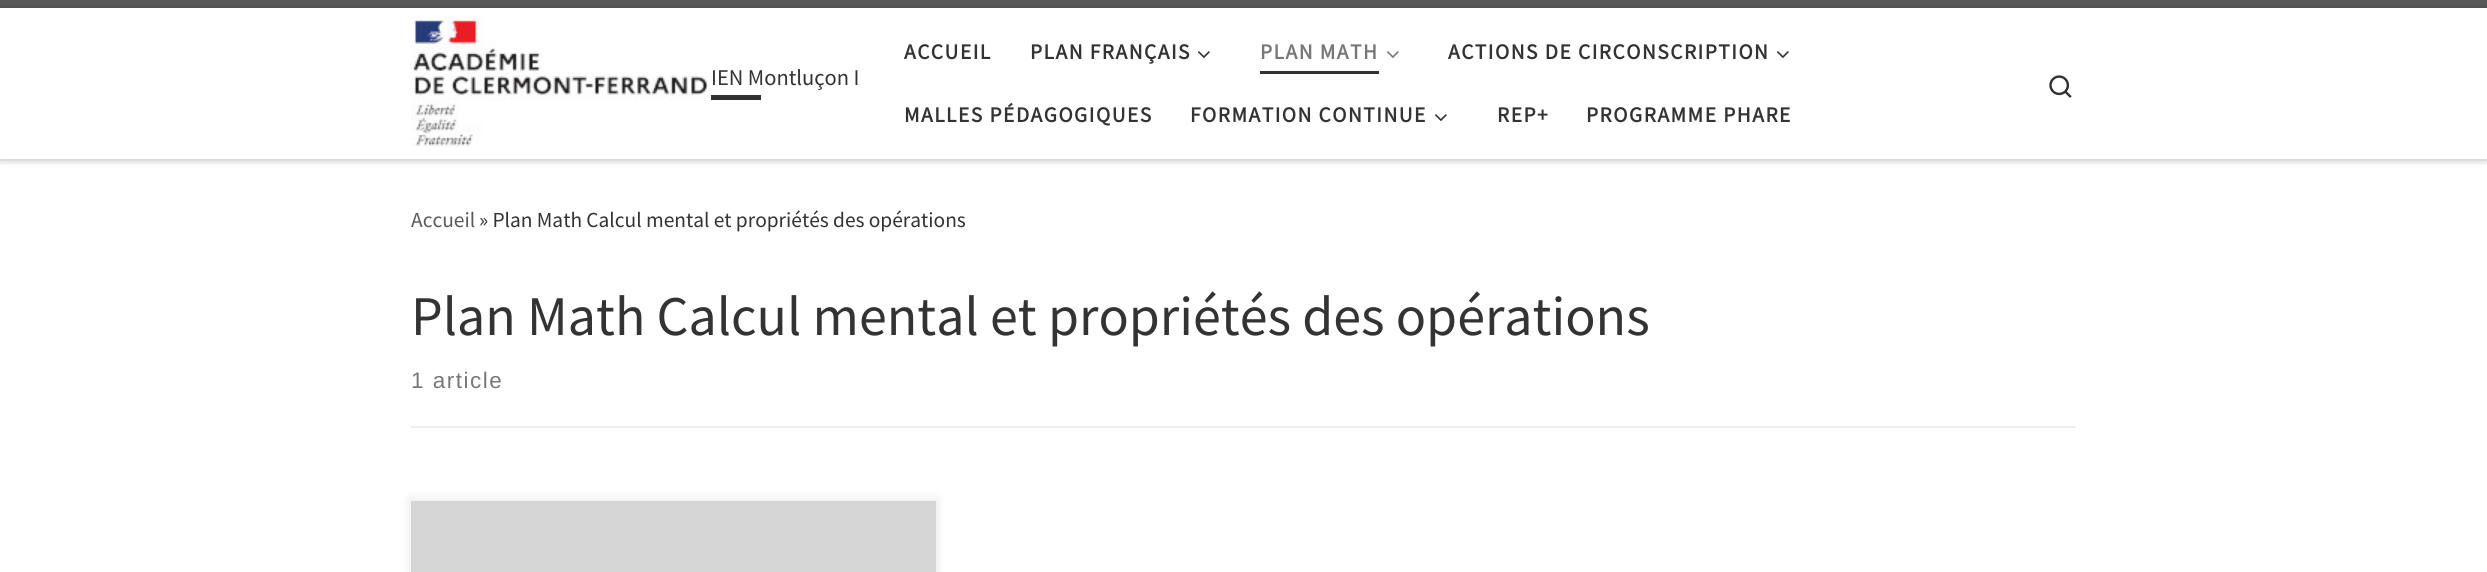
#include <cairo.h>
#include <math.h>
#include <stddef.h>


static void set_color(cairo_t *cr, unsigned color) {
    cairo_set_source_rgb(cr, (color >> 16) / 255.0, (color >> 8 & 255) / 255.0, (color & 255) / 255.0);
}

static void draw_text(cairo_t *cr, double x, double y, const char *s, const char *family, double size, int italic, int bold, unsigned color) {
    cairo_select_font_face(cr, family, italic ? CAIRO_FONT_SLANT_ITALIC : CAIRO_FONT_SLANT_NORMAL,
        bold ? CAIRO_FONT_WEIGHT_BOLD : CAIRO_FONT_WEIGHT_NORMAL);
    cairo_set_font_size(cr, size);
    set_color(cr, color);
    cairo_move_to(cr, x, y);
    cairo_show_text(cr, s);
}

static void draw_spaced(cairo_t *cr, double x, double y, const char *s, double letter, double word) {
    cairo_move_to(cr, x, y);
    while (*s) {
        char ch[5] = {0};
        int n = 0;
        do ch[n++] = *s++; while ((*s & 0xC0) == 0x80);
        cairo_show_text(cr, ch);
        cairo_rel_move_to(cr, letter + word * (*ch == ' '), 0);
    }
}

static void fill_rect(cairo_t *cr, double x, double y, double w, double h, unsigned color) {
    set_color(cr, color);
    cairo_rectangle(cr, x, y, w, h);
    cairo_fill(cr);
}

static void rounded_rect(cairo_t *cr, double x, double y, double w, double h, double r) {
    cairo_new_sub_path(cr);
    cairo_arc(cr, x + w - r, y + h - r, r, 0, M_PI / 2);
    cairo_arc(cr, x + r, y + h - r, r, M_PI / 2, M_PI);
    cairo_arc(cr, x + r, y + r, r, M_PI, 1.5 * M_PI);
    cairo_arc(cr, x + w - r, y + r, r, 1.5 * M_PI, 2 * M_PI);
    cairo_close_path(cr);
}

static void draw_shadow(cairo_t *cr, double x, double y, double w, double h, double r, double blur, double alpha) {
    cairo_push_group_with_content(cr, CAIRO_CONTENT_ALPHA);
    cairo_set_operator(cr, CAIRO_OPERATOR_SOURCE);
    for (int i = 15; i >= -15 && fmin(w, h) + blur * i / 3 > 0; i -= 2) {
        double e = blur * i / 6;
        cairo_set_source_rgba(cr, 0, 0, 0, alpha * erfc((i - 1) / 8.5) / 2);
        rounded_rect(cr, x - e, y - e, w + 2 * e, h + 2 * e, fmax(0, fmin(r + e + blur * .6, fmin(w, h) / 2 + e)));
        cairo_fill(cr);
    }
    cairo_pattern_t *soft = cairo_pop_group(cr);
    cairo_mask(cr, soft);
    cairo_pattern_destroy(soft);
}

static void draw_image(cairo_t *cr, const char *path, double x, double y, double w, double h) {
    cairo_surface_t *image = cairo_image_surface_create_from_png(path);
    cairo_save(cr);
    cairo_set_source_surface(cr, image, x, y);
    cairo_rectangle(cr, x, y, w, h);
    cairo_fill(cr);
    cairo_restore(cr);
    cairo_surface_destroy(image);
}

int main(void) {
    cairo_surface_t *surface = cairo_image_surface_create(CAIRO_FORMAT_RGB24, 2487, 572);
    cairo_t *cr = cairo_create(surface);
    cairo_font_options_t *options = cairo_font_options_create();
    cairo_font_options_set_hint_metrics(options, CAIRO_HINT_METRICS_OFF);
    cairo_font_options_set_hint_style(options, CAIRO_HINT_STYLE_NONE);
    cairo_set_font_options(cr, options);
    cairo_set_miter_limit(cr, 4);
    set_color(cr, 0xFFFFFF);
    cairo_paint(cr);
    set_color(cr, 0x666666);
    draw_shadow(cr, 0, 3, 2487, 161, 0, 1.5, 0.08);
    fill_rect(cr, 0, 8, 2487, 151, 0xFFFFFF);
    fill_rect(cr, 0, 0, 2487, 8, 0x5A5A5A);
    fill_rect(cr, 0, 159, 2487, 2, 0xEFEFEF);
    cairo_save(cr);
    cairo_set_fill_rule(cr, CAIRO_FILL_RULE_EVEN_ODD);
    cairo_new_path(cr);
    cairo_move_to(cr, 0, 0);
    cairo_line_to(cr, 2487, 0);
    cairo_line_to(cr, 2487, 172);
    cairo_line_to(cr, 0, 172);
    cairo_close_path(cr);
    cairo_move_to(cr, 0, 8);
    cairo_line_to(cr, 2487, 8);
    cairo_line_to(cr, 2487, 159);
    cairo_line_to(cr, 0, 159);
    cairo_close_path(cr);
    cairo_clip(cr);
    set_color(cr, 0x000000);
    draw_shadow(cr, 0, 8, 2487, 151, 0, 4, 0.2);
    cairo_restore(cr);
    draw_image(cr, "assets/img1.png", 411, 16, 300, 132);
    draw_text(cr, 711, 85, "IEN Montluçon I", "Source Sans Pro", 22.5, 0, 0, 0x333333);
    fill_rect(cr, 711, 95, 50, 5, 0x313131);
    cairo_select_font_face(cr, "Source Sans Pro", CAIRO_FONT_SLANT_NORMAL, CAIRO_FONT_WEIGHT_BOLD);
    cairo_set_font_size(cr, 21.4);
    set_color(cr, 0x333333);
    draw_spaced(cr, 904, 59, "ACCUEIL", 1.5, 0);
    draw_spaced(cr, 1030, 59, "PLAN FRANÇAIS", 1.5, 0);
    draw_image(cr, "assets/img2.png", 1198, 51, 12, 7);
    set_color(cr, 0x777777);
    draw_spaced(cr, 1260, 59, "PLAN MATH", 1.5, 0);
    fill_rect(cr, 1260, 71, 119, 3, 0x313131);
    draw_image(cr, "assets/img3.png", 1387, 51, 12, 7);
    set_color(cr, 0x333333);
    draw_spaced(cr, 1448, 59, "ACTIONS DE CIRCONSCRIPTION", 1.5, 0);
    draw_image(cr, "assets/img2.png", 1777, 51, 12, 7);
    draw_spaced(cr, 904, 122, "MALLES PÉDAGOGIQUES", 1.5, 0);
    draw_spaced(cr, 1190, 122, "FORMATION CONTINUE", 1.5, 0);
    draw_image(cr, "assets/img2.png", 1435, 114, 12, 7);
    draw_spaced(cr, 1497, 122, "REP+", 1.5, 0);
    draw_spaced(cr, 1586, 122, "PROGRAMME PHARE", 1.5, 0);
    draw_image(cr, "assets/img4.png", 2049, 75, 23, 23);
    draw_text(cr, 411, 227, "Accueil", "Source Sans Pro", 21.4, 0, 0, 0x5A5A5A);
    draw_text(cr, 479, 227, "» Plan Math Calcul mental et propriétés des opérations", "Source Sans Pro", 21.4, 0, 0, 0x333333);
    draw_text(cr, 411, 335, "Plan Math Calcul mental et propriétés des opérations", "Source Sans Pro", 56, 0, 0, 0x333333);
    cairo_select_font_face(cr, "Liberation Sans", CAIRO_FONT_SLANT_NORMAL, CAIRO_FONT_WEIGHT_NORMAL);
    cairo_set_font_size(cr, 22.5);
    set_color(cr, 0x777777);
    draw_spaced(cr, 411, 388, "1 article", 1.5, 0);
    fill_rect(cr, 411, 426, 1665, 2, 0xECEEEF);
    set_color(cr, 0x000000);
    draw_shadow(cr, 408, 498, 531, 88, 0, 4.5, 0.07);
    fill_rect(cr, 411, 501, 525, 71, 0xD5D5D5);
    cairo_surface_write_to_png(surface, "output.png");
    cairo_font_options_destroy(options);
    cairo_destroy(cr);
    cairo_surface_destroy(surface);
    return 0;
}
